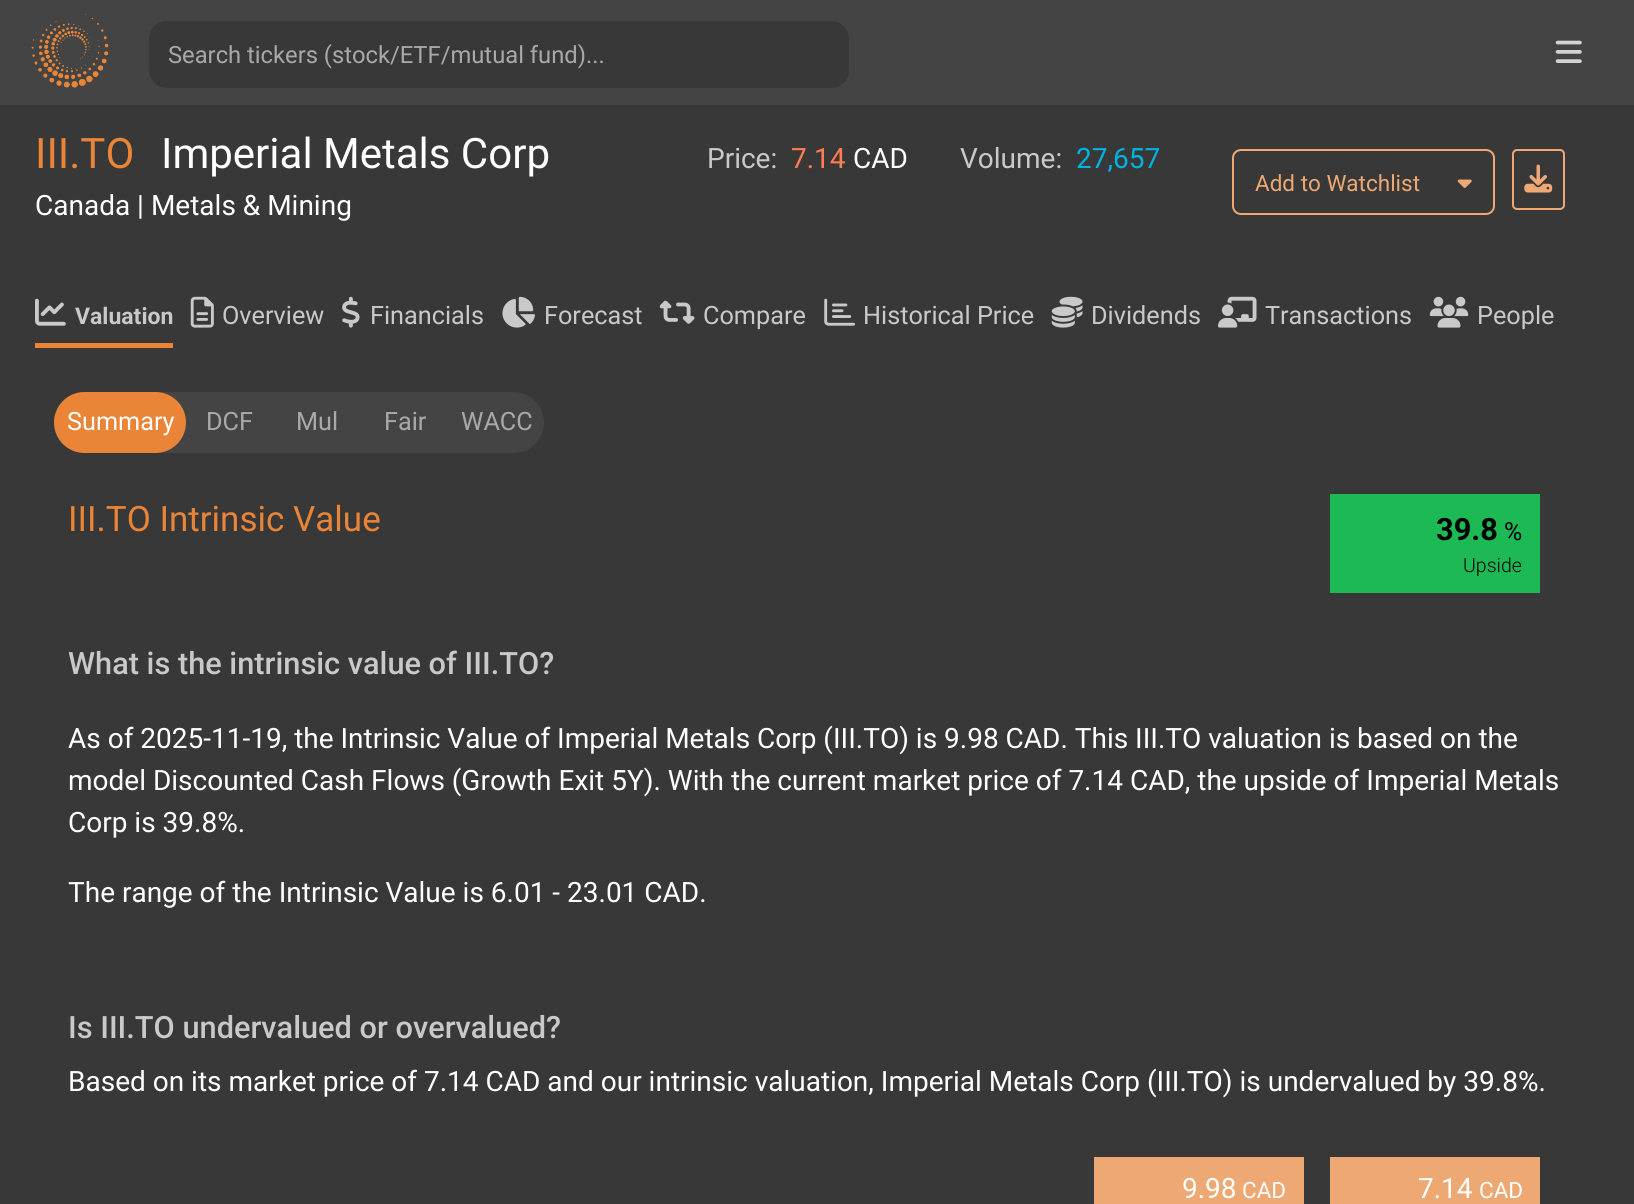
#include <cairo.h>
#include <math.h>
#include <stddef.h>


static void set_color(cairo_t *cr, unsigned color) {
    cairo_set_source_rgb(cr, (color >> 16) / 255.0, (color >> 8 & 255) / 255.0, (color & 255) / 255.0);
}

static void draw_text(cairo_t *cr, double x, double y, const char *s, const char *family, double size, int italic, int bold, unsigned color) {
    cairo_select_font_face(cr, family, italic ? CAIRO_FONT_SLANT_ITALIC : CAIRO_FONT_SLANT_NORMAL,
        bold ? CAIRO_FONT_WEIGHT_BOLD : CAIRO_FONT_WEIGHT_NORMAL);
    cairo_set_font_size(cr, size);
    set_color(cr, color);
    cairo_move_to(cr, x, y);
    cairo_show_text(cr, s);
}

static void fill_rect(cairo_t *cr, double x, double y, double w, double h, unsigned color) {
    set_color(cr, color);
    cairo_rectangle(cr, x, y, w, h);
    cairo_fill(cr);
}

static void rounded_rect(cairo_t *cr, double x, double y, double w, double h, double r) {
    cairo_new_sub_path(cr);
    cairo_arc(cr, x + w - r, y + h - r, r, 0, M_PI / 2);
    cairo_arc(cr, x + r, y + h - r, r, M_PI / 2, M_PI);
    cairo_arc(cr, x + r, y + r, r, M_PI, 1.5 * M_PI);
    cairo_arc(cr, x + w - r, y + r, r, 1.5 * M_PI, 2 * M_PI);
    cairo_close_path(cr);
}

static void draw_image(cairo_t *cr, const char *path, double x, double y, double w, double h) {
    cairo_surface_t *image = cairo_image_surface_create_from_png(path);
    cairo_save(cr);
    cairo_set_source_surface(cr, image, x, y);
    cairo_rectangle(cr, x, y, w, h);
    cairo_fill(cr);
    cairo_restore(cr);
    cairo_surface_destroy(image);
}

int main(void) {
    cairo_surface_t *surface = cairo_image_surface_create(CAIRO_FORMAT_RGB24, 1634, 1204);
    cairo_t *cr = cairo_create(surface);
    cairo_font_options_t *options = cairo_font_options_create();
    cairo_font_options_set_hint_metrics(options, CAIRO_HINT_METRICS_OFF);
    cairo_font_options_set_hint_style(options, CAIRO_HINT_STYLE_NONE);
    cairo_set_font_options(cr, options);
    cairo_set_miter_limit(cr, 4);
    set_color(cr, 0x383838);
    cairo_paint(cr);
    fill_rect(cr, 0, 0, 1634, 105, 0x444444);
    draw_image(cr, "assets/img1.png", 31, 14, 78, 74);
    set_color(cr, 0x383838);
    rounded_rect(cr, 149, 21, 700, 67, 18);
    cairo_fill(cr);
    draw_text(cr, 168, 63, "Search tickers (stock/ETF/mutual fund)...", "Roboto", 23.75, 0, 0, 0xA9A9A9);
    draw_image(cr, "assets/img2.png", 1555, 40, 27, 23);
    draw_text(cr, 35, 168, "III.TO", "Roboto", 42, 0, 0, 0xEA8436);
    draw_text(cr, 161, 168, "Imperial Metals Corp", "Roboto", 42, 0, 0, 0xFFFFFF);
    draw_text(cr, 707, 168, "Price:", "Roboto", 28, 0, 0, 0xC9C9C9);
    draw_text(cr, 791, 168, "7.14", "Roboto", 28, 0, 0, 0xFF7F50);
    draw_text(cr, 853, 168, "CAD", "Roboto", 28, 0, 0, 0xFFFFFF);
    draw_text(cr, 960, 168, "Volume:", "Roboto", 28, 0, 0, 0xC9C9C9);
    draw_text(cr, 1076, 168, "27,657", "Roboto", 28, 0, 0, 0x00B3E3);
    rounded_rect(cr, 1233, 150, 261, 64, 8);
    set_color(cr, 0xEEA874);
    cairo_stroke(cr);
    draw_text(cr, 1255, 191, "Add to Watchlist", "Roboto", 22.5, 0, 0, 0xEEA874);
    draw_image(cr, "assets/img3.png", 1457, 179, 15, 9);
    rounded_rect(cr, 1513, 150, 51, 59, 4);
    cairo_stroke(cr);
    draw_image(cr, "assets/img4.png", 1524, 164, 29, 29);
    draw_text(cr, 35, 215, "Canada | Metals & Mining", "Roboto", 28, 0, 0, 0xFFFFFF);
    fill_rect(cr, 35, 343, 138, 5, 0xEA8436);
    draw_image(cr, "assets/img5.png", 35, 298, 31, 28);
    draw_text(cr, 75, 324, "Valuation", "Roboto", 23, 0, 1, 0xC9C9C9);
    draw_image(cr, "assets/img6.png", 190, 296, 24, 32);
    draw_text(cr, 222, 324, "Overview", "Roboto", 25.25, 0, 0, 0xC9C9C9);
    draw_image(cr, "assets/img7.png", 342, 296, 18, 32);
    draw_text(cr, 370, 324, "Financials", "Roboto", 25.25, 0, 0, 0xC9C9C9);
    draw_image(cr, "assets/img8.png", 502, 296, 33, 32);
    draw_text(cr, 544, 324, "Forecast", "Roboto", 25.25, 0, 0, 0xC9C9C9);
    draw_image(cr, "assets/img9.png", 659, 300, 36, 24);
    draw_text(cr, 703, 324, "Compare", "Roboto", 25.25, 0, 0, 0xC9C9C9);
    draw_image(cr, "assets/img10.png", 824, 298, 31, 28);
    draw_text(cr, 863, 324, "Historical Price", "Roboto", 25.25, 0, 0, 0xC9C9C9);
    draw_image(cr, "assets/img11.png", 1051, 296, 32, 32);
    draw_text(cr, 1091, 324, "Dividends", "Roboto", 25.25, 0, 0, 0xC9C9C9);
    draw_image(cr, "assets/img12.png", 1218, 296, 39, 32);
    draw_text(cr, 1265, 324, "Transactions", "Roboto", 25.25, 0, 0, 0xC9C9C9);
    draw_image(cr, "assets/img13.png", 1429, 296, 40, 32);
    draw_text(cr, 1477, 324, "People", "Roboto", 25.25, 0, 0, 0xC9C9C9);
    set_color(cr, 0x444444);
    rounded_rect(cr, 54, 392, 490, 61, 30.5);
    cairo_fill(cr);
    set_color(cr, 0xEA8436);
    rounded_rect(cr, 54, 392, 132, 61, 30.5);
    cairo_fill(cr);
    draw_text(cr, 67, 430, "Summary", "Roboto", 25.25, 0, 0, 0xFFFFFF);
    draw_text(cr, 206, 430, "DCF", "Roboto", 25.25, 0, 0, 0xA9A9A9);
    draw_text(cr, 296, 430, "Mul", "Roboto", 25.25, 0, 0, 0xA9A9A9);
    draw_text(cr, 384, 430, "Fair", "Roboto", 25.25, 0, 0, 0xA9A9A9);
    draw_text(cr, 461, 430, "WACC", "Roboto", 25.25, 0, 0, 0xA9A9A9);
    draw_text(cr, 68, 531, "III.TO Intrinsic Value", "Roboto", 35, 0, 0, 0xEA8436);
    fill_rect(cr, 1330, 494, 210, 99, 0x1DB954);
    draw_text(cr, 1436, 540, "39.8", "Roboto", 30.75, 0, 1, 0x000000);
    draw_text(cr, 1504, 540, "%", "Roboto", 25, 0, 0, 0x000000);
    draw_text(cr, 1463, 572, "Upside", "Roboto Light", 19.5, 0, 0, 0x000000);
    draw_text(cr, 68, 674, "What is the intrinsic value of III.TO?", "Roboto Medium", 30.75, 0, 0, 0xC9C9C9);
    draw_text(cr, 68, 748, "As of 2025-11-19, the Intrinsic Value of Imperial Metals Corp (III.TO) is 9.98 CAD. This III.TO valuation is based on the", "Roboto", 28, 0, 0, 0xFFFFFF);
    draw_text(cr, 68, 790, "model Discounted Cash Flows (Growth Exit 5Y). With the current market price of 7.14 CAD, the upside of Imperial Metals", "Roboto", 28, 0, 0, 0xFFFFFF);
    draw_text(cr, 68, 832, "Corp is 39.8%.", "Roboto", 28, 0, 0, 0xFFFFFF);
    draw_text(cr, 68, 902, "The range of the Intrinsic Value is 6.01 - 23.01 CAD.", "Roboto", 28, 0, 0, 0xFFFFFF);
    draw_text(cr, 68, 1038, "Is III.TO undervalued or overvalued?", "Roboto Medium", 30.75, 0, 0, 0xC9C9C9);
    draw_text(cr, 68, 1091, "Based on its market price of 7.14 CAD and our intrinsic valuation, Imperial Metals Corp (III.TO) is undervalued by 39.8%.", "Roboto", 28, 0, 0, 0xFFFFFF);
    fill_rect(cr, 1094, 1157, 210, 47, 0xEEA874);
    draw_text(cr, 1182, 1198, "9.98", "Roboto", 28, 0, 0, 0xFFFFFF);
    draw_text(cr, 1242, 1198, "CAD", "Roboto", 22.5, 0, 0, 0xFFFFFF);
    fill_rect(cr, 1330, 1157, 210, 47, 0xEEA874);
    draw_text(cr, 1418, 1198, "7.14", "Roboto", 28, 0, 0, 0xFFFFFF);
    draw_text(cr, 1479, 1198, "CAD", "Roboto", 22.5, 0, 0, 0xFFFFFF);
    cairo_surface_write_to_png(surface, "output.png");
    cairo_font_options_destroy(options);
    cairo_destroy(cr);
    cairo_surface_destroy(surface);
    return 0;
}
